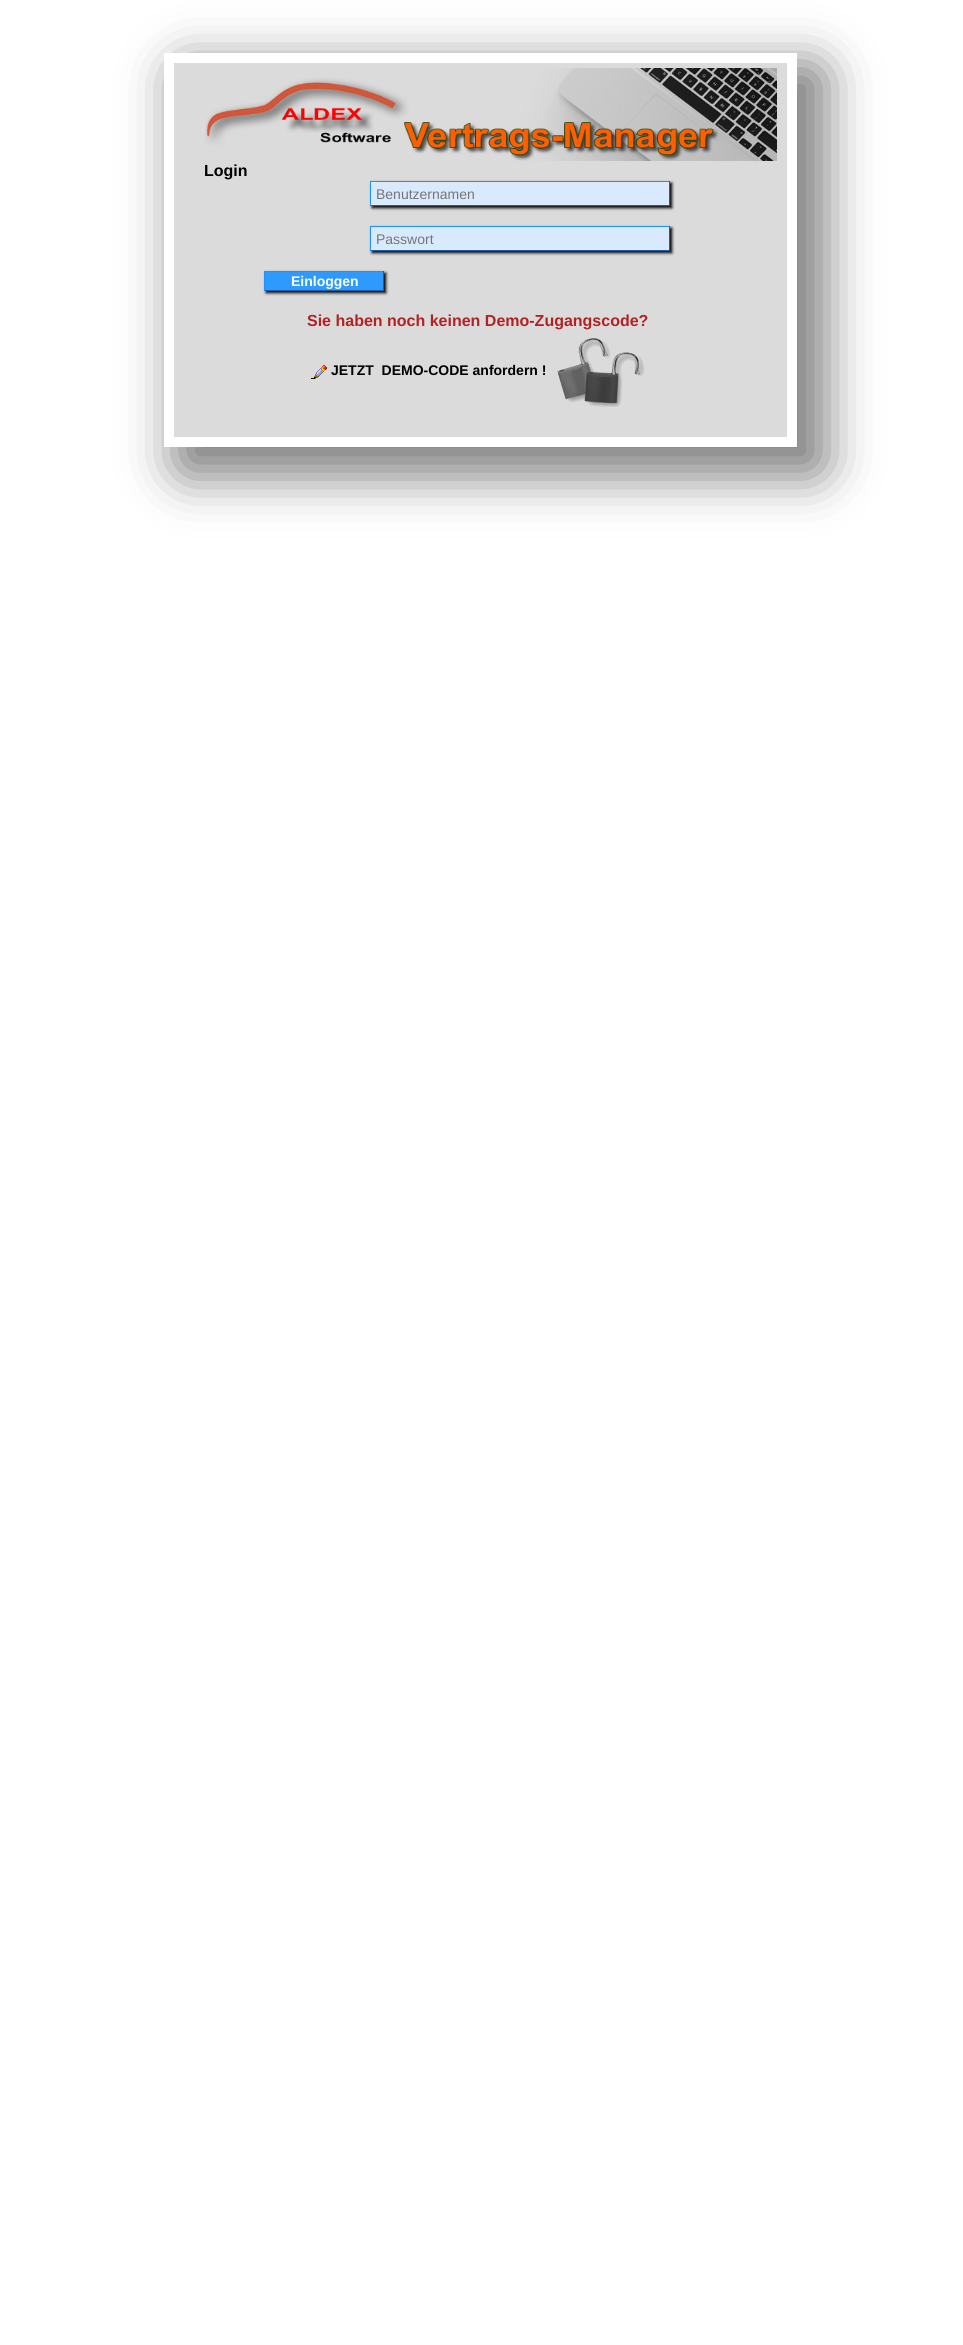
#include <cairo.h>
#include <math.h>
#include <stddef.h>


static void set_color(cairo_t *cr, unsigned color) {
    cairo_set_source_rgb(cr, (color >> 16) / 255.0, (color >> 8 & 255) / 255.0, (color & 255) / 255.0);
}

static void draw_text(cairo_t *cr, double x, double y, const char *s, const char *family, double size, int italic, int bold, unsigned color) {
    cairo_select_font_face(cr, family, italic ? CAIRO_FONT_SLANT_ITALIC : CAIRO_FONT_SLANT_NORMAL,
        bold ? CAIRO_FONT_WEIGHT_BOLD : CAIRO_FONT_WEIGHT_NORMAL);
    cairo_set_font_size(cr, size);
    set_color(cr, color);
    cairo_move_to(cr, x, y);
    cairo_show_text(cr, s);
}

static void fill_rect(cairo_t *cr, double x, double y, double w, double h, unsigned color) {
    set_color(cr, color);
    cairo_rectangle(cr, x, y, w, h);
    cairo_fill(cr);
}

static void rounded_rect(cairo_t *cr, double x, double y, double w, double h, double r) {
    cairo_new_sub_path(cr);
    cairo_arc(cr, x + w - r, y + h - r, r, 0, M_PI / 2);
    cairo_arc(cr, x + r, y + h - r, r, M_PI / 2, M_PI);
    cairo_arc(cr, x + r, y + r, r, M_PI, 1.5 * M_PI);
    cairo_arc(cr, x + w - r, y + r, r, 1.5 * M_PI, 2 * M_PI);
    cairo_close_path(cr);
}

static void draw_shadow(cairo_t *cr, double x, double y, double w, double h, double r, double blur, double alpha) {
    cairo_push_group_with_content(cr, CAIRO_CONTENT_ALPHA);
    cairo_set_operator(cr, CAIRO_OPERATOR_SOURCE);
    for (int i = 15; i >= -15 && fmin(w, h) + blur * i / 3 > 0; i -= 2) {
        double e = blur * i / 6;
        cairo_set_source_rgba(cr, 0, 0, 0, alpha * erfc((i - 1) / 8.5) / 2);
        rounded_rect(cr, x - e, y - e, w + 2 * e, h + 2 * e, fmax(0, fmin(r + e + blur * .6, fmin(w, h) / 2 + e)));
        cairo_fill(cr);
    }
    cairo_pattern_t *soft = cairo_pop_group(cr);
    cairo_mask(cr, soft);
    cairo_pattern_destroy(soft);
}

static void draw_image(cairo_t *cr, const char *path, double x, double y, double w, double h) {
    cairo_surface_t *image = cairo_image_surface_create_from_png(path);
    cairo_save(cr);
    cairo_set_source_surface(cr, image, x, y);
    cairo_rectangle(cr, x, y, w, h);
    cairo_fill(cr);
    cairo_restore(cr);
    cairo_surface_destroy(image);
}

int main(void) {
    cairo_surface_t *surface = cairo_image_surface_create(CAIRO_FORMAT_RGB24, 963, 2345);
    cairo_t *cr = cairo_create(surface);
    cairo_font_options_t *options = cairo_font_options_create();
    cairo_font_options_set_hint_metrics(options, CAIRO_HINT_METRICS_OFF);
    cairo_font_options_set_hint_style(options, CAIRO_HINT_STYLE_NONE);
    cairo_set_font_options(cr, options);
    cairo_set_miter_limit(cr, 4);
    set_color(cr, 0xFFFFFF);
    cairo_paint(cr);
    set_color(cr, 0x808080);
    draw_shadow(cr, 174, 63, 653, 414, 12, 25, 1);
    fill_rect(cr, 174, 63, 613, 374, 0xDBDBDB);
    cairo_new_path(cr);
    cairo_move_to(cr, 169, 58);
    cairo_line_to(cr, 792, 58);
    cairo_line_to(cr, 792, 442);
    cairo_line_to(cr, 169, 442);
    cairo_close_path(cr);
    set_color(cr, 0xFFFFFF);
    cairo_set_line_width(cr, 10);
    cairo_stroke(cr);
    draw_image(cr, "assets/img1.png", 205, 68, 572, 93);
    draw_text(cr, 204, 176, "Login", "Liberation Sans", 16, 0, 1, 0x000000);
    set_color(cr, 0x000000);
    draw_shadow(cr, 372, 183, 300, 25, 0, 1.5, 1);
    fill_rect(cr, 371, 182, 298, 23, 0xDAEAFE);
    fill_rect(cr, 370, 181, 300, 1, 0x1E90FF);
    fill_rect(cr, 669, 181, 1, 25, 0x1460AA);
    fill_rect(cr, 370, 205, 300, 1, 0x1460AA);
    fill_rect(cr, 370, 181, 1, 25, 0x1E90FF);
    draw_text(cr, 376, 199, "Benutzernamen", "Liberation Sans", 14, 0, 0, 0x757575);
    set_color(cr, 0x000000);
    draw_shadow(cr, 372, 228, 300, 25, 0, 1.5, 1);
    fill_rect(cr, 371, 227, 298, 23, 0xDAEAFE);
    fill_rect(cr, 370, 226, 300, 1, 0x1E90FF);
    fill_rect(cr, 669, 226, 1, 25, 0x1460AA);
    fill_rect(cr, 370, 250, 300, 1, 0x1460AA);
    fill_rect(cr, 370, 226, 1, 25, 0x1E90FF);
    draw_text(cr, 376, 244, "Passwort", "Liberation Sans", 14, 0, 0, 0x757575);
    set_color(cr, 0x000000);
    draw_shadow(cr, 266, 273, 120, 20, 0, 1.5, 1);
    fill_rect(cr, 265, 272, 118, 18, 0x2E9AFE);
    fill_rect(cr, 264, 271, 120, 1, 0x1E90FF);
    fill_rect(cr, 383, 271, 1, 20, 0x1460AA);
    fill_rect(cr, 264, 290, 120, 1, 0x1460AA);
    fill_rect(cr, 264, 271, 1, 20, 0x1E90FF);
    draw_text(cr, 291, 286, "Einloggen", "Liberation Sans", 14, 0, 1, 0xFFFFFF);
    draw_text(cr, 307, 326, "Sie haben noch keinen Demo-Zugangscode?", "Liberation Sans", 16, 0, 1, 0xB22222);
    draw_image(cr, "assets/img2.png", 311, 365, 16, 14);
    draw_text(cr, 331, 375, "JETZT  DEMO-CODE anfordern !", "Liberation Sans", 14, 0, 1, 0x000000);
    draw_image(cr, "assets/img3.png", 557, 338, 88, 69);
    cairo_surface_write_to_png(surface, "output.png");
    cairo_font_options_destroy(options);
    cairo_destroy(cr);
    cairo_surface_destroy(surface);
    return 0;
}
